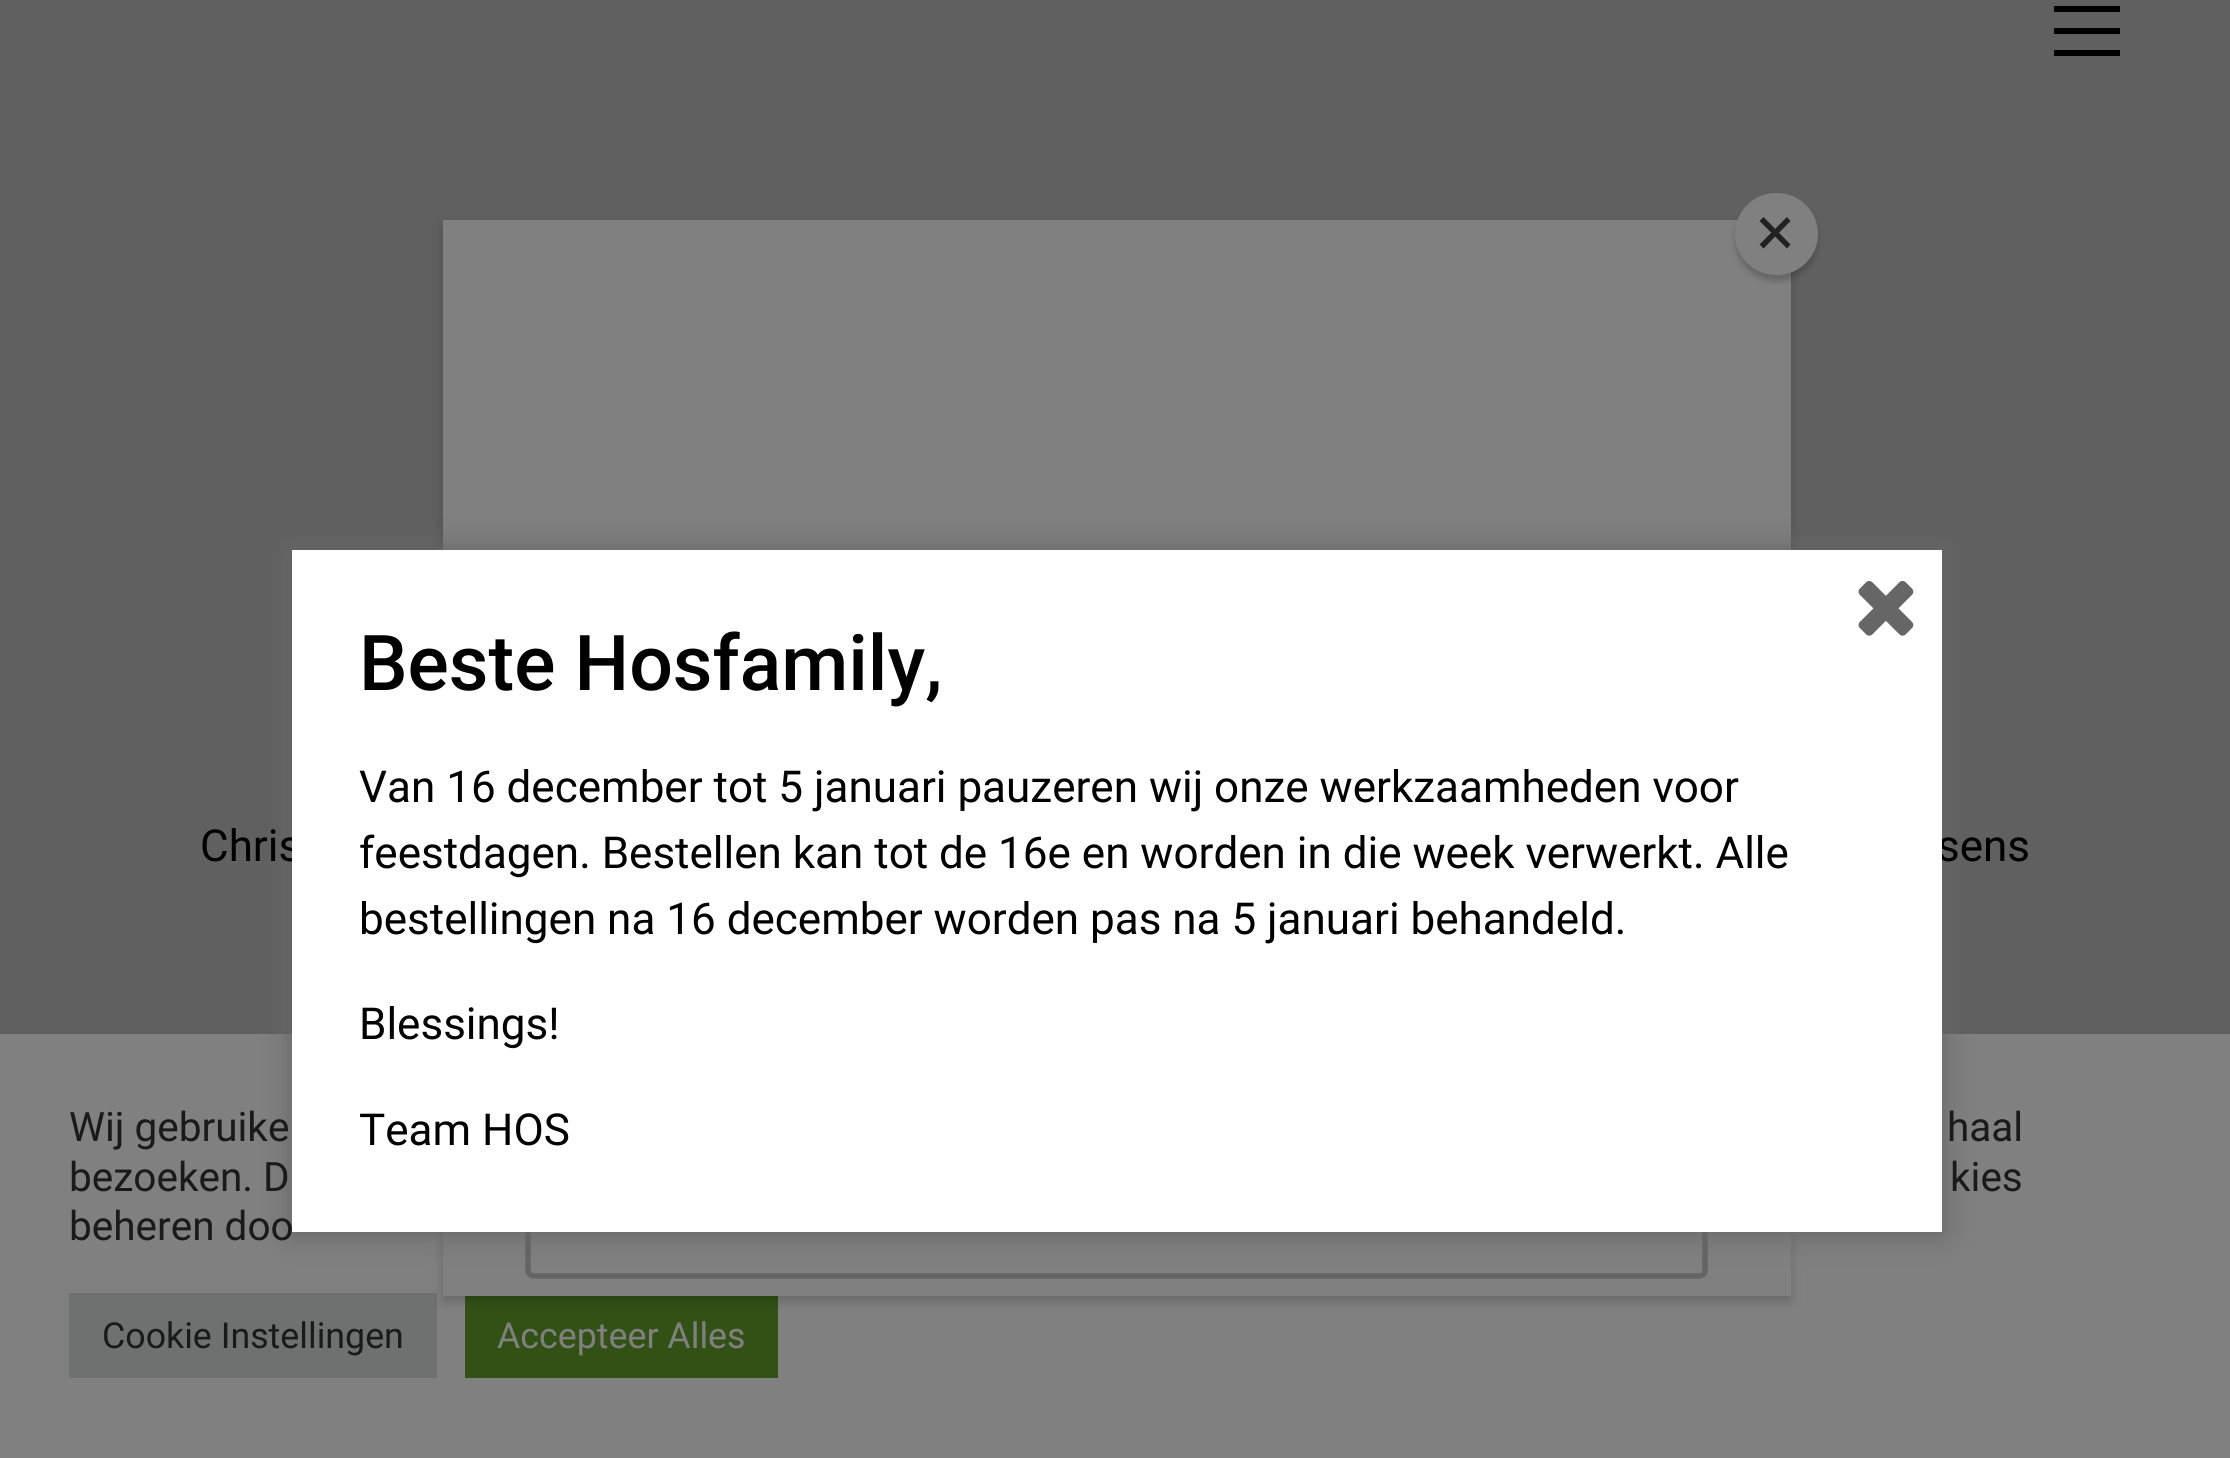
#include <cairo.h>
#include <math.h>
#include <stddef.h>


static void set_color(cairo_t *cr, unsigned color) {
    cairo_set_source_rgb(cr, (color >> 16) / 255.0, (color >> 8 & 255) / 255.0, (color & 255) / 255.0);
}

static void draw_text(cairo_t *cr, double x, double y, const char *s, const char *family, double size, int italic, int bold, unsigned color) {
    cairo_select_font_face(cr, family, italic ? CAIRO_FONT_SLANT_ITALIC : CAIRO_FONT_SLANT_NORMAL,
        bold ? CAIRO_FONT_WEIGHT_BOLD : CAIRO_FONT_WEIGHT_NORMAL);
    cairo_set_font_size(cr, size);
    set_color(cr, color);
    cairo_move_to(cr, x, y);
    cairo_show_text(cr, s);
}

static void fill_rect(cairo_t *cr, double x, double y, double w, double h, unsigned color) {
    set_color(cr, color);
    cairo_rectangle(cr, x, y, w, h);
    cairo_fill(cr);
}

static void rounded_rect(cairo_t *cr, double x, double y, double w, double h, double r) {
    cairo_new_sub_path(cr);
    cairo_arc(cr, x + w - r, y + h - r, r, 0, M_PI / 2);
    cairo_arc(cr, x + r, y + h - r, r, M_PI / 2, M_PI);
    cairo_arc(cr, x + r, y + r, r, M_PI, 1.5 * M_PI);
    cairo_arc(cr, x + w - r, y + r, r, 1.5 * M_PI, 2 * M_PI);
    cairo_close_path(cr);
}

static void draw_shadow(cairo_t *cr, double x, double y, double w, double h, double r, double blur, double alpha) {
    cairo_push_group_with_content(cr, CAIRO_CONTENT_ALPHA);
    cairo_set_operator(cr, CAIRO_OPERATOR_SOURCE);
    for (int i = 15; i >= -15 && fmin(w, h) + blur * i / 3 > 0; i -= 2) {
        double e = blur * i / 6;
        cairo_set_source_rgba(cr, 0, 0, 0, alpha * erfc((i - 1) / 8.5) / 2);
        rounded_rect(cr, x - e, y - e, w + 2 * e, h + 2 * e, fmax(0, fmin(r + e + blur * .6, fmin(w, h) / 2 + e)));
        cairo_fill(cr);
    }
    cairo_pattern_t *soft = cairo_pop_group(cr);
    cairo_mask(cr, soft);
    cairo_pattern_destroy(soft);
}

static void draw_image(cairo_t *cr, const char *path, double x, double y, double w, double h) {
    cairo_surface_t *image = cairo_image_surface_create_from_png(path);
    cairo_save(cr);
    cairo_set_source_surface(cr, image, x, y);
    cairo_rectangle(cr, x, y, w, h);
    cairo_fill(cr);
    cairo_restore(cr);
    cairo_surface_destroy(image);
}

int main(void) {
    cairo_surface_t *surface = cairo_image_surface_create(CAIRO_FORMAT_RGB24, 2230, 1458);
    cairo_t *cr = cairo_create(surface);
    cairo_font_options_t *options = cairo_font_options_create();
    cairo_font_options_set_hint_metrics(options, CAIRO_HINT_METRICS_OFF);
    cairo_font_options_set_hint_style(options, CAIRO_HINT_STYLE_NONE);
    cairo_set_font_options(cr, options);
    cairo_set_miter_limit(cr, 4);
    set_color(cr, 0x606060);
    cairo_paint(cr);
    fill_rect(cr, 2054, 6, 66, 6, 0x000000);
    fill_rect(cr, 2054, 28, 66, 6, 0x000000);
    fill_rect(cr, 2054, 50, 66, 6, 0x000000);
    fill_rect(cr, 0, 1034, 2230, 424, 0x808080);
    fill_rect(cr, 69, 1293, 368, 85, 0x6F7070);
    fill_rect(cr, 465, 1296, 313, 82, 0x315115);
    set_color(cr, 0x000000);
    draw_shadow(cr, 443, 226, 1347, 1075, 0, 5.5, 0.2);
    draw_image(cr, "assets/img1.png", 443, 220, 1348, 1076);
    draw_shadow(cr, 1735, 198, 83, 83, 41.5, 3, 0.2);
    set_color(cr, 0x808080);
    rounded_rect(cr, 1735, 193, 83, 82, 41);
    cairo_fill(cr);
    set_color(cr, 0x212121);
    cairo_new_path(cr);
    cairo_move_to(cr, 1787, 217);
    cairo_line_to(cr, 1790.5, 221);
    cairo_line_to(cr, 1763.5, 248.5);
    cairo_line_to(cr, 1759.5, 244.5);
    cairo_close_path(cr);
    cairo_fill(cr);
    cairo_new_path(cr);
    cairo_move_to(cr, 1759.5, 221);
    cairo_line_to(cr, 1763.5, 217);
    cairo_line_to(cr, 1790.5, 244.5);
    cairo_line_to(cr, 1787, 248.5);
    cairo_close_path(cr);
    cairo_fill(cr);
    set_color(cr, 0x666666);
    draw_shadow(cr, 289, 547, 1655, 688, 0, 14, 1);
    draw_text(cr, 200, 861, "Chris", "Roboto", 44, 0, 0, 0x000000);
    draw_text(cr, 1937, 861, "sens", "Roboto", 44, 0, 0, 0x000000);
    fill_rect(cr, 292, 550, 1650, 682, 0xFFFFFF);
    draw_image(cr, "assets/img2.png", 1858, 581, 56, 55);
    draw_text(cr, 359, 690, "Beste Hosfamily,", "Roboto Medium", 77, 0, 0, 0x000000);
    draw_text(cr, 359, 802, "Van 16 december tot 5 januari pauzeren wij onze werkzaamheden voor", "Roboto", 44, 0, 0, 0x000000);
    draw_text(cr, 359, 868, "feestdagen. Bestellen kan tot de 16e en worden in die week verwerkt. Alle", "Roboto", 44, 0, 0, 0x000000);
    draw_text(cr, 359, 934, "bestellingen na 16 december worden pas na 5 januari behandeld.", "Roboto", 44, 0, 0, 0x000000);
    draw_text(cr, 359, 1039, "Blessings!", "Roboto", 44, 0, 0, 0x000000);
    draw_text(cr, 359, 1145, "Team HOS", "Roboto", 44, 0, 0, 0x000000);
    draw_text(cr, 69, 1141, "Wij gebruike", "Roboto", 40.5, 0, 0, 0x1A1A1A);
    draw_text(cr, 1947, 1141, "haal", "Roboto", 40.5, 0, 0, 0x1A1A1A);
    draw_text(cr, 69, 1191, "bezoeken. D", "Roboto", 40.5, 0, 0, 0x1A1A1A);
    draw_text(cr, 1950, 1191, "kies", "Roboto", 40.5, 0, 0, 0x1A1A1A);
    draw_text(cr, 69, 1240, "beheren doo", "Roboto", 40.5, 0, 0, 0x1A1A1A);
    draw_text(cr, 102, 1348, "Cookie Instellingen", "Roboto", 35.75, 0, 0, 0x1A1A1A);
    draw_text(cr, 497, 1348, "Accepteer Alles", "Roboto", 35.75, 0, 0, 0x808080);
    cairo_surface_write_to_png(surface, "output.png");
    cairo_font_options_destroy(options);
    cairo_destroy(cr);
    cairo_surface_destroy(surface);
    return 0;
}
